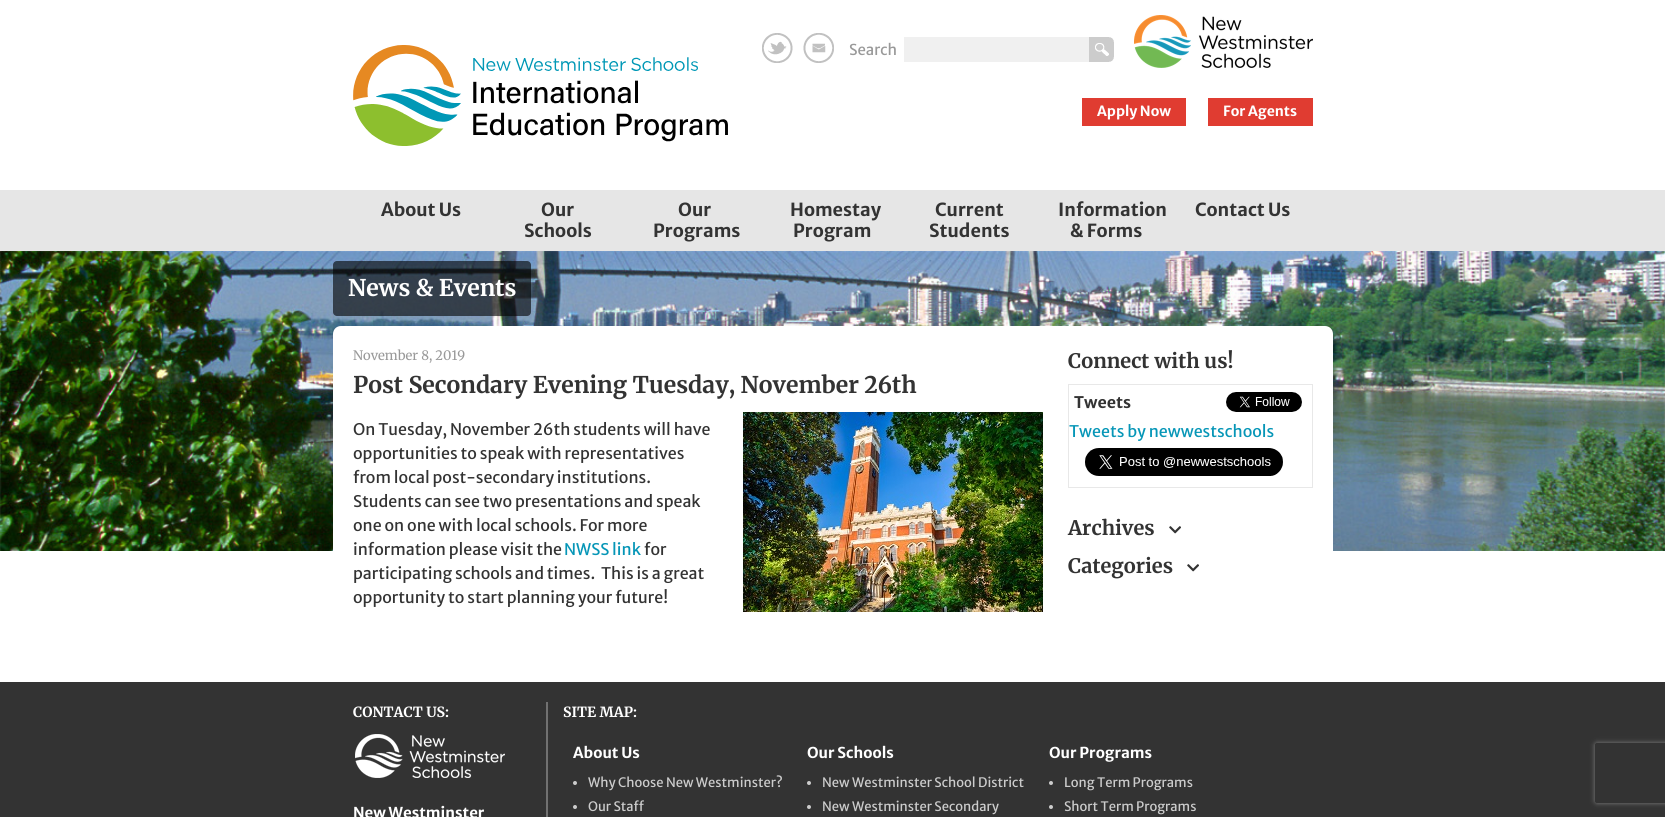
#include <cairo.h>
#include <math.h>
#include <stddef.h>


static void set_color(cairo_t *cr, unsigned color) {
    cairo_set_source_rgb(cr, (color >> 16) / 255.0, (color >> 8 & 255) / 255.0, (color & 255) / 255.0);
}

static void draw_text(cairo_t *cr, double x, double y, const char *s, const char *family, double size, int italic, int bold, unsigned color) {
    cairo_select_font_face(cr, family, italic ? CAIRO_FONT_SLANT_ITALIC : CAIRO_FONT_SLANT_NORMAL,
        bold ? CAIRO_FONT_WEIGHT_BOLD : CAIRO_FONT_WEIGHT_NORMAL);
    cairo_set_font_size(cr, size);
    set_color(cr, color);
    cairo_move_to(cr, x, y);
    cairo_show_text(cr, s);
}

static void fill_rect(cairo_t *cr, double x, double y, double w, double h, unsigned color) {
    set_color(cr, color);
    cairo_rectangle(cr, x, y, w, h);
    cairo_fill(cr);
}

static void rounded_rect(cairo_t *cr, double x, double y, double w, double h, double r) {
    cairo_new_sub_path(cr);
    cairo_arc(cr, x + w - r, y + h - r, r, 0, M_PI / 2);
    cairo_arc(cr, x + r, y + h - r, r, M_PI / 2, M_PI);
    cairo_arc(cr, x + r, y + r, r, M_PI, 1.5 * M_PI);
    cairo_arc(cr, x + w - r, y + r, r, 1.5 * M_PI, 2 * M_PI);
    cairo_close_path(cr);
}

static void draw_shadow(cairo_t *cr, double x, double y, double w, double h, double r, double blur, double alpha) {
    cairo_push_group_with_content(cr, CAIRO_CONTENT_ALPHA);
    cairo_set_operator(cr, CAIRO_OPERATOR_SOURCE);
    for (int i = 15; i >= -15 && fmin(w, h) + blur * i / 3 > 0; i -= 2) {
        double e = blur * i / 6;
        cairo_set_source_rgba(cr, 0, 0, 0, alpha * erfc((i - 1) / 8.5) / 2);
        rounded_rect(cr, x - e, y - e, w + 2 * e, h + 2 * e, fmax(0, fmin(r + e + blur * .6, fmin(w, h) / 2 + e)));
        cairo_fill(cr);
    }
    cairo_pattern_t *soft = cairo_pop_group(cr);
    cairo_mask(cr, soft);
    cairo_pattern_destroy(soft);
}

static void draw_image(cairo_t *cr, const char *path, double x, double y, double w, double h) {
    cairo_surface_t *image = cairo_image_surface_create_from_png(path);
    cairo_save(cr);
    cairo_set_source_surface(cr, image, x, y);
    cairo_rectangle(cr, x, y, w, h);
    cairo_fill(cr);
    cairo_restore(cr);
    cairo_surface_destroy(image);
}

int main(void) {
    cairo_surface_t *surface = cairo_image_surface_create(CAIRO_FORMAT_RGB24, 1665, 817);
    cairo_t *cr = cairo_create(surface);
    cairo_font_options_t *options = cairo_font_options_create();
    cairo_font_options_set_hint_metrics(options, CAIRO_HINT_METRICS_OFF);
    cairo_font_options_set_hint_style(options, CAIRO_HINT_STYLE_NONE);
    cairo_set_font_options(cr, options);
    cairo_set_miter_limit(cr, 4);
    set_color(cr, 0x333333);
    cairo_paint(cr);
    fill_rect(cr, 0, 0, 1665, 190, 0xFFFFFF);
    draw_image(cr, "assets/img1.png", 353, 45, 375, 101);
    draw_image(cr, "assets/img2.png", 762, 33, 31, 30);
    draw_image(cr, "assets/img3.png", 803, 33, 31, 30);
    draw_text(cr, 849, 55, "Search", "Merriweather Sans", 15, 0, 0, 0x999999);
    fill_rect(cr, 904, 37, 185, 25, 0xF0F0F0);
    draw_image(cr, "assets/img4.png", 1089, 37, 25, 25);
    draw_image(cr, "assets/img5.png", 1134, 15, 179, 53);
    fill_rect(cr, 1082, 98, 104, 28, 0xE03C31);
    draw_text(cr, 1097, 116, "Apply Now", "Merriweather Sans", 14, 0, 1, 0xFFFFFF);
    fill_rect(cr, 1208, 98, 105, 28, 0xE03C31);
    draw_text(cr, 1223, 116, "For Agents", "Merriweather Sans", 14, 0, 1, 0xFFFFFF);
    fill_rect(cr, 0, 190, 1665, 61, 0xE6E6E6);
    draw_text(cr, 381, 216, "About Us", "Merriweather Sans", 18, 0, 1, 0x333333);
    draw_text(cr, 541, 216, "Our", "Merriweather Sans", 18, 0, 1, 0x333333);
    draw_text(cr, 524, 237, "Schools", "Merriweather Sans", 18, 0, 1, 0x333333);
    draw_text(cr, 678, 216, "Our", "Merriweather Sans", 18, 0, 1, 0x333333);
    draw_text(cr, 653, 237, "Programs", "Merriweather Sans", 18, 0, 1, 0x333333);
    draw_text(cr, 790, 216, "Homestay", "Merriweather Sans", 18, 0, 1, 0x333333);
    draw_text(cr, 793, 237, "Program", "Merriweather Sans", 18, 0, 1, 0x333333);
    draw_text(cr, 935, 216, "Current", "Merriweather Sans", 18, 0, 1, 0x333333);
    draw_text(cr, 929, 237, "Students", "Merriweather Sans", 18, 0, 1, 0x333333);
    draw_text(cr, 1058, 216, "Information", "Merriweather Sans", 18, 0, 1, 0x333333);
    draw_text(cr, 1070, 237, "& Forms", "Merriweather Sans", 18, 0, 1, 0x333333);
    draw_text(cr, 1195, 216, "Contact Us", "Merriweather Sans", 18, 0, 1, 0x333333);
    draw_image(cr, "assets/img6.png", 0, 251, 1665, 300);
    fill_rect(cr, 0, 551, 1665, 131, 0xFFFFFF);
    cairo_new_path(cr);
    cairo_move_to(cr, 341, 326);
    cairo_line_to(cr, 1325, 326);
    cairo_curve_to(cr, 1329.5, 326, 1333, 329.5, 1333, 334);
    cairo_line_to(cr, 1333, 682);
    cairo_line_to(cr, 333, 682);
    cairo_line_to(cr, 333, 334);
    cairo_curve_to(cr, 333, 329.5, 336.5, 326, 341, 326);
    cairo_close_path(cr);
    cairo_fill(cr);
    cairo_set_source_rgba(cr, 0, 0, 0, 0.6);
    rounded_rect(cr, 333, 261, 198, 55, 4);
    cairo_fill(cr);
    draw_text(cr, 348, 296, "News & Events", "Merriweather", 23, 0, 1, 0xFFFFFF);
    draw_text(cr, 353, 360, "November 8, 2019", "Merriweather", 13, 0, 0, 0x999999);
    draw_text(cr, 353, 393, "Post Secondary Evening Tuesday, November 26th", "Merriweather", 23, 0, 1, 0x333333);
    draw_text(cr, 353, 435, "On Tuesday, November 26th students will have", "Merriweather Sans", 16, 0, 0, 0x333333);
    draw_text(cr, 353, 459, "opportunities to speak with representatives", "Merriweather Sans", 16, 0, 0, 0x333333);
    draw_text(cr, 353, 483, "from local post-secondary institutions.", "Merriweather Sans", 16, 0, 0, 0x333333);
    draw_text(cr, 353, 507, "Students can see two presentations and speak", "Merriweather Sans", 16, 0, 0, 0x333333);
    draw_text(cr, 353, 531, "one on one with local schools. For more", "Merriweather Sans", 16, 0, 0, 0x333333);
    draw_text(cr, 353, 555, "information please visit the", "Merriweather Sans", 16, 0, 0, 0x333333);
    draw_text(cr, 564, 555, "NWSS link", "Merriweather Sans", 16, 0, 0, 0x0696B7);
    draw_text(cr, 644, 555, "for", "Merriweather Sans", 16, 0, 0, 0x333333);
    draw_text(cr, 353, 579, "participating schools and times.  This is a great", "Merriweather Sans", 16, 0, 0, 0x333333);
    draw_text(cr, 353, 603, "opportunity to start planning your future!", "Merriweather Sans", 16, 0, 0, 0x333333);
    draw_image(cr, "assets/img7.png", 743, 412, 300, 200);
    draw_text(cr, 1068, 368, "Connect with us!", "Merriweather", 20, 0, 1, 0x333333);
    cairo_rectangle(cr, 1068.5, 384.5, 244, 103);
    set_color(cr, 0xE8E8E8);
    cairo_set_line_width(cr, 1);
    cairo_stroke(cr);
    draw_text(cr, 1074, 408, "Tweets", "Merriweather Sans", 16, 0, 1, 0x333333);
    draw_image(cr, "assets/img8.png", 1226, 392, 76, 20);
    draw_text(cr, 1069, 437, "Tweets by newwestschools", "Merriweather Sans", 16, 0, 0, 0x0696B7);
    draw_image(cr, "assets/img9.png", 1085, 448, 198, 28);
    draw_text(cr, 1068, 535, "Archives", "Merriweather", 20, 0, 1, 0x333333);
    draw_image(cr, "assets/img10.png", 1169, 526, 12, 8);
    draw_text(cr, 1068, 573, "Categories", "Merriweather", 20, 0, 1, 0x333333);
    draw_image(cr, "assets/img10.png", 1187, 564, 12, 8);
    draw_text(cr, 353, 717, "CONTACT US:", "Merriweather", 14, 0, 1, 0xFFFFFF);
    fill_rect(cr, 546, 702, 2, 115, 0x717171);
    draw_image(cr, "assets/img11.png", 355, 734, 150, 44);
    draw_text(cr, 353, 818, "New Westminster", "Merriweather Sans", 15, 0, 1, 0xFFFFFF);
    draw_text(cr, 563, 717, "SITE MAP:", "Merriweather", 14, 0, 1, 0xFFFFFF);
    draw_text(cr, 573, 758, "About Us", "Merriweather Sans", 15, 0, 1, 0xFFFFFF);
    set_color(cr, 0xCCCCCC);
    cairo_new_path(cr);
    cairo_arc(cr, 575, 783, 2, 0, 2 * M_PI);
    cairo_fill(cr);
    draw_text(cr, 588, 787, "Why Choose New Westminster?", "Merriweather Sans", 13, 0, 0, 0xCCCCCC);
    cairo_new_path(cr);
    cairo_arc(cr, 575, 807, 2, 0, 2 * M_PI);
    cairo_fill(cr);
    draw_text(cr, 588, 811, "Our Staff", "Merriweather Sans", 13, 0, 0, 0xCCCCCC);
    draw_text(cr, 807, 758, "Our Schools", "Merriweather Sans", 15, 0, 1, 0xFFFFFF);
    set_color(cr, 0xCCCCCC);
    cairo_new_path(cr);
    cairo_arc(cr, 809, 783, 2, 0, 2 * M_PI);
    cairo_fill(cr);
    draw_text(cr, 822, 787, "New Westminster School District", "Merriweather Sans", 13, 0, 0, 0xCCCCCC);
    cairo_new_path(cr);
    cairo_arc(cr, 809, 807, 2, 0, 2 * M_PI);
    cairo_fill(cr);
    draw_text(cr, 822, 811, "New Westminster Secondary", "Merriweather Sans", 13, 0, 0, 0xCCCCCC);
    draw_text(cr, 1049, 758, "Our Programs", "Merriweather Sans", 15, 0, 1, 0xFFFFFF);
    set_color(cr, 0xCCCCCC);
    cairo_new_path(cr);
    cairo_arc(cr, 1051, 783, 2, 0, 2 * M_PI);
    cairo_fill(cr);
    draw_text(cr, 1064, 787, "Long Term Programs", "Merriweather Sans", 13, 0, 0, 0xCCCCCC);
    cairo_new_path(cr);
    cairo_arc(cr, 1051, 807, 2, 0, 2 * M_PI);
    cairo_fill(cr);
    draw_text(cr, 1064, 811, "Short Term Programs", "Merriweather Sans", 13, 0, 0, 0xCCCCCC);
    cairo_save(cr);
    cairo_set_fill_rule(cr, CAIRO_FILL_RULE_EVEN_ODD);
    cairo_new_path(cr);
    cairo_move_to(cr, 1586, 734);
    cairo_line_to(cr, 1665, 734);
    cairo_line_to(cr, 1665, 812);
    cairo_line_to(cr, 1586, 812);
    cairo_close_path(cr);
    cairo_move_to(cr, 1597, 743);
    cairo_line_to(cr, 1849, 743);
    cairo_curve_to(cr, 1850, 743, 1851, 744, 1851, 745);
    cairo_line_to(cr, 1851, 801);
    cairo_curve_to(cr, 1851, 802, 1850, 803, 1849, 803);
    cairo_line_to(cr, 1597, 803);
    cairo_curve_to(cr, 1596, 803, 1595, 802, 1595, 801);
    cairo_line_to(cr, 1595, 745);
    cairo_curve_to(cr, 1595, 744, 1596, 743, 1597, 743);
    cairo_close_path(cr);
    cairo_clip(cr);
    set_color(cr, 0x808080);
    draw_shadow(cr, 1595, 743, 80, 60, 2, 2.5, 1);
    cairo_restore(cr);
    cairo_surface_write_to_png(surface, "output.png");
    cairo_font_options_destroy(options);
    cairo_destroy(cr);
    cairo_surface_destroy(surface);
    return 0;
}
